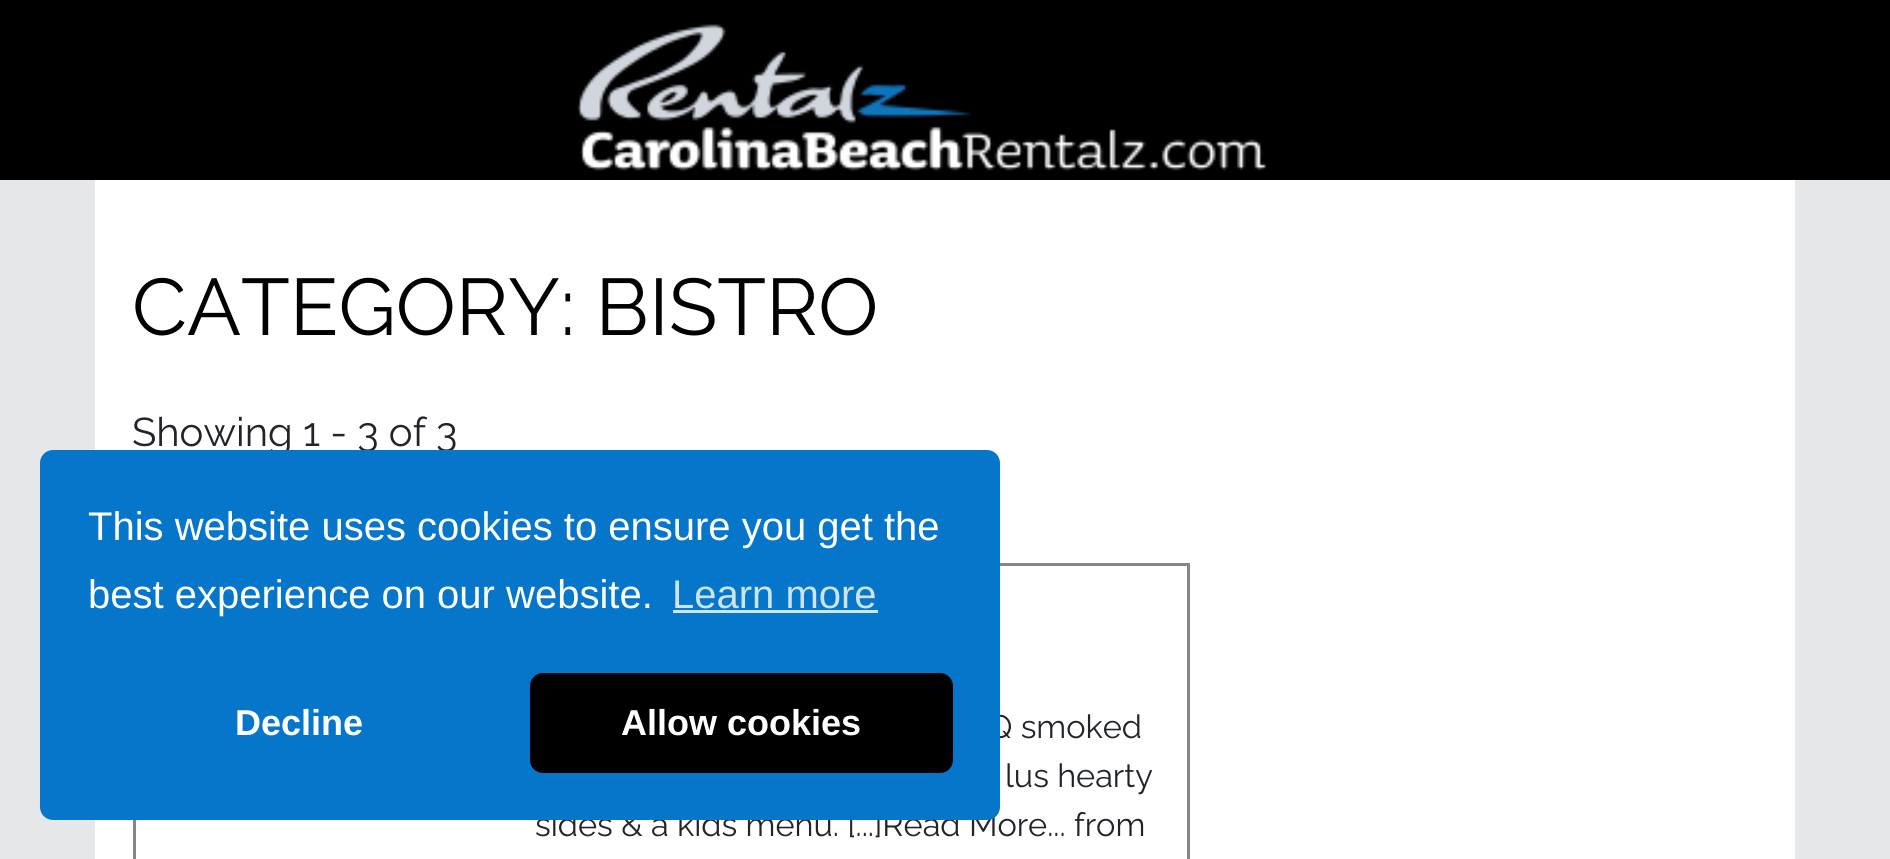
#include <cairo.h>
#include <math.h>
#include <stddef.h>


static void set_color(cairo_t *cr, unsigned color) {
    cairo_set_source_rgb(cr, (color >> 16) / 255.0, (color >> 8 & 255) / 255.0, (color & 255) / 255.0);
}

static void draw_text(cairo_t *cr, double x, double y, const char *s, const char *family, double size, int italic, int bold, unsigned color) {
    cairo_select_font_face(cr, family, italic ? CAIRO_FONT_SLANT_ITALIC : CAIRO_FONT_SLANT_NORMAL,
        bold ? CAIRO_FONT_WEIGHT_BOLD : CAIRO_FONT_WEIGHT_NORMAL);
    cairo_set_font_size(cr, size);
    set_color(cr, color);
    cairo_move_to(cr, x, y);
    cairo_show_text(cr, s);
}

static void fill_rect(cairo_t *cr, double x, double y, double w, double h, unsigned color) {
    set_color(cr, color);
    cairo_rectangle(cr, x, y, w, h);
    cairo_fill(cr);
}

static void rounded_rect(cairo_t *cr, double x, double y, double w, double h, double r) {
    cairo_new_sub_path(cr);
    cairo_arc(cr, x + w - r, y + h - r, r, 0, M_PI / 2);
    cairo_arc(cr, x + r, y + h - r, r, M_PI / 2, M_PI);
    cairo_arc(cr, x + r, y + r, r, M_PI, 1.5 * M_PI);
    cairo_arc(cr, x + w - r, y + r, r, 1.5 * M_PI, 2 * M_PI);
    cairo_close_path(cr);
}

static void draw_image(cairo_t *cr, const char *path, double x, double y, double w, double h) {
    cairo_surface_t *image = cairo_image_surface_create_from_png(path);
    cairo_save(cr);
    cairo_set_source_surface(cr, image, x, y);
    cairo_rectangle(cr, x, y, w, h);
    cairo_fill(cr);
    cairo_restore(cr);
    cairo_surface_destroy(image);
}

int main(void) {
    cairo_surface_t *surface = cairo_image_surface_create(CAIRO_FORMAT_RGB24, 1890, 859);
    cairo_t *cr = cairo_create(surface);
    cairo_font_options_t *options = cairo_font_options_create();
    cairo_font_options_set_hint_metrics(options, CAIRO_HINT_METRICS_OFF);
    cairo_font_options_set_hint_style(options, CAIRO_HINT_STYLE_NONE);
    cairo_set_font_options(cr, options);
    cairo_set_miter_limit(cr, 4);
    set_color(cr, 0xE6E7E8);
    cairo_paint(cr);
    fill_rect(cr, 0, 0, 1890, 180, 0x000000);
    draw_image(cr, "assets/img1.png", 577, 24, 689, 147);
    fill_rect(cr, 95, 180, 1700, 679, 0xFFFFFF);
    draw_text(cr, 132, 335, "CATEGORY: BISTRO", "Raleway Thin", 80, 0, 0, 0x000000);
    draw_text(cr, 132, 446, "Showing 1 - 3 of 3", "Raleway Thin", 40, 0, 0, 0x212529);
    cairo_rectangle(cr, 134.5, 564.5, 1054, 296);
    set_color(cr, 0x868686);
    cairo_set_line_width(cr, 3);
    cairo_stroke(cr);
    draw_text(cr, 988, 738, "Q smoked", "Raleway Thin", 32.5, 0, 0, 0x212529);
    draw_text(cr, 1005, 787, "lus hearty", "Raleway Thin", 32.5, 0, 0, 0x212529);
    draw_text(cr, 535, 836, "sides & a kids menu. [...]Read More... from", "Raleway Thin", 32.5, 0, 0, 0x212529);
    set_color(cr, 0x0676CB);
    rounded_rect(cr, 40, 450, 960, 370, 13);
    cairo_fill(cr);
    draw_text(cr, 88, 540, "This website uses cookies to ensure you get the", "Liberation Sans", 40, 0, 0, 0xFFFFFF);
    draw_text(cr, 88, 608, "best experience on our website.", "Liberation Sans", 40, 0, 0, 0xFFFFFF);
    draw_text(cr, 672, 608, "Learn more", "Liberation Sans", 40, 0, 0, 0xCDE4F5);
    fill_rect(cr, 673, 610, 205, 3, 0xCDE4F5);
    draw_text(cr, 235, 735, "Decline", "Liberation Sans", 36, 0, 1, 0xFFFFFF);
    set_color(cr, 0x000000);
    rounded_rect(cr, 532.5, 675.5, 418, 95, 10.5);
    cairo_fill_preserve(cr);
    cairo_set_line_width(cr, 5);
    cairo_stroke(cr);
    draw_text(cr, 621, 735, "Allow cookies", "Liberation Sans", 36, 0, 1, 0xFFFFFF);
    cairo_surface_write_to_png(surface, "output.png");
    cairo_font_options_destroy(options);
    cairo_destroy(cr);
    cairo_surface_destroy(surface);
    return 0;
}
